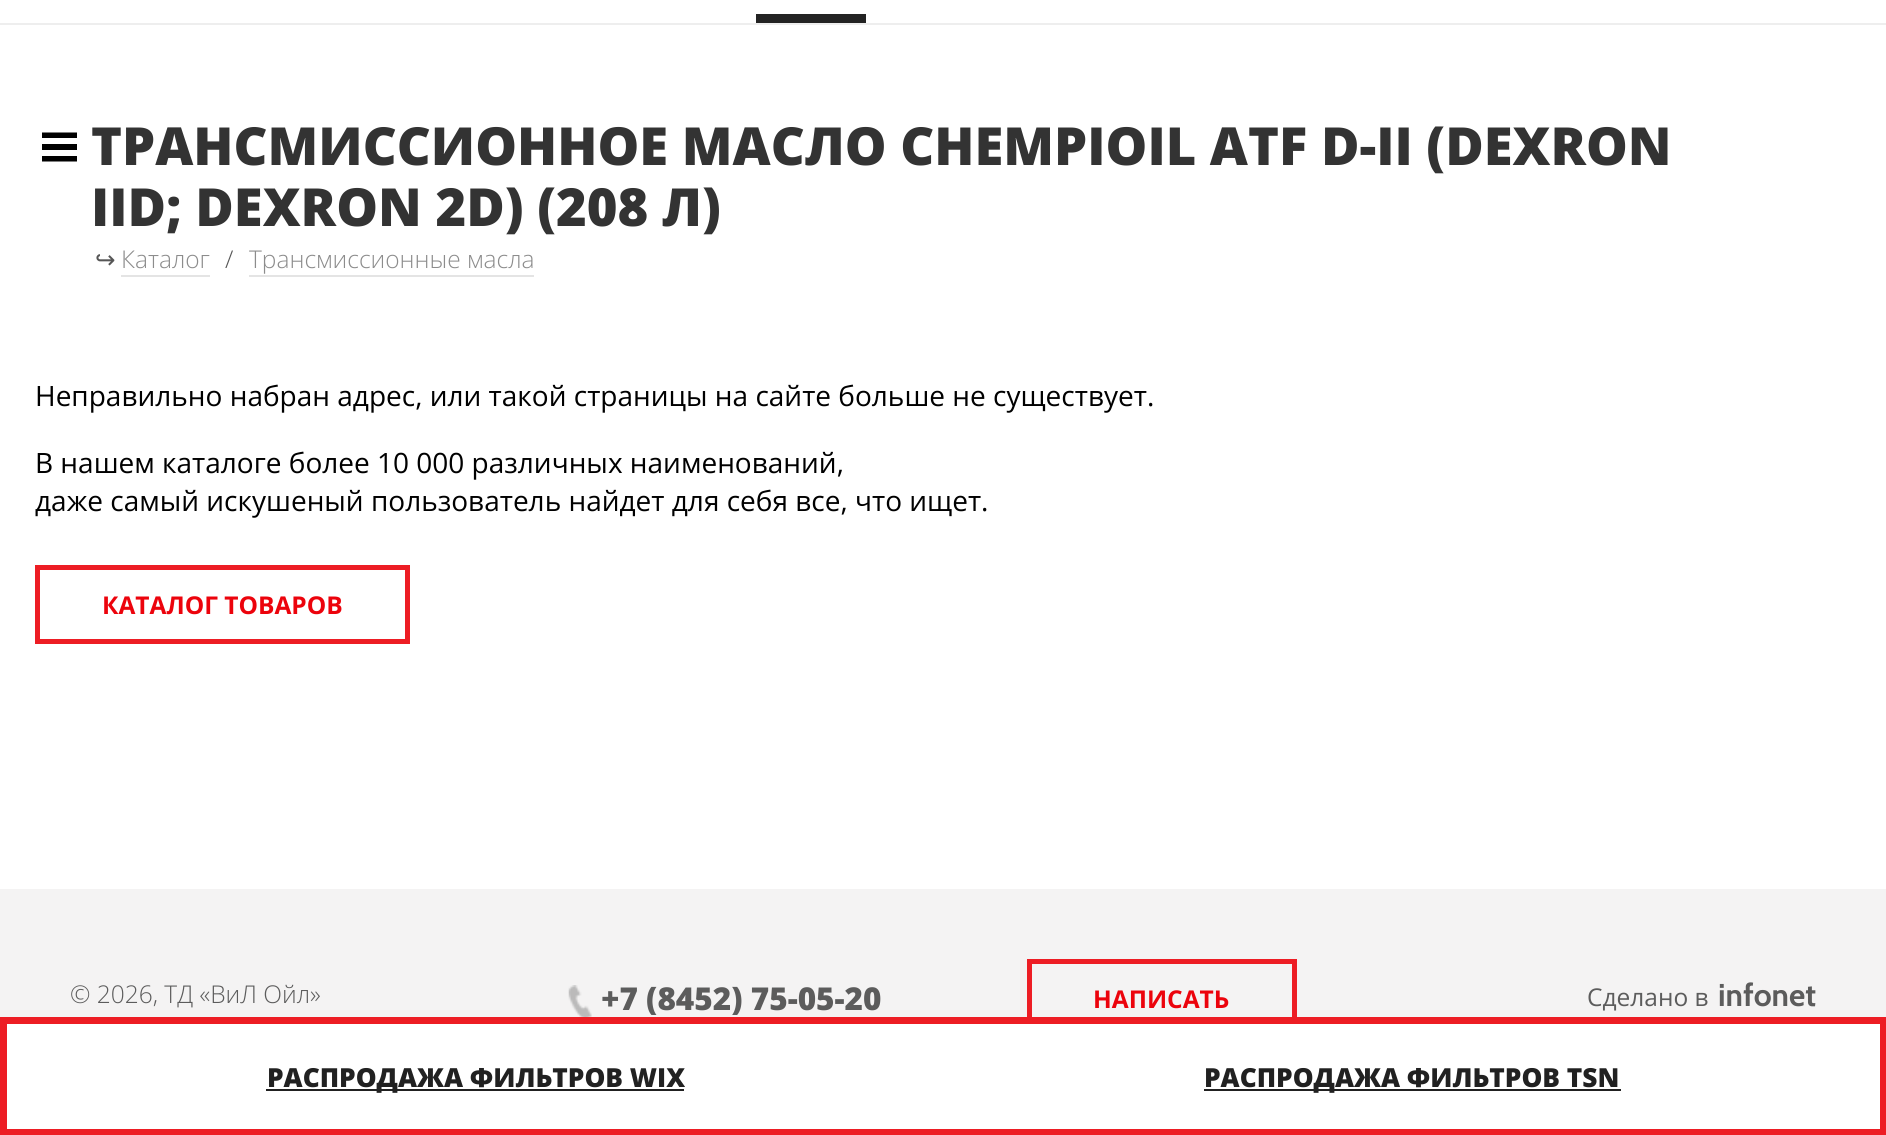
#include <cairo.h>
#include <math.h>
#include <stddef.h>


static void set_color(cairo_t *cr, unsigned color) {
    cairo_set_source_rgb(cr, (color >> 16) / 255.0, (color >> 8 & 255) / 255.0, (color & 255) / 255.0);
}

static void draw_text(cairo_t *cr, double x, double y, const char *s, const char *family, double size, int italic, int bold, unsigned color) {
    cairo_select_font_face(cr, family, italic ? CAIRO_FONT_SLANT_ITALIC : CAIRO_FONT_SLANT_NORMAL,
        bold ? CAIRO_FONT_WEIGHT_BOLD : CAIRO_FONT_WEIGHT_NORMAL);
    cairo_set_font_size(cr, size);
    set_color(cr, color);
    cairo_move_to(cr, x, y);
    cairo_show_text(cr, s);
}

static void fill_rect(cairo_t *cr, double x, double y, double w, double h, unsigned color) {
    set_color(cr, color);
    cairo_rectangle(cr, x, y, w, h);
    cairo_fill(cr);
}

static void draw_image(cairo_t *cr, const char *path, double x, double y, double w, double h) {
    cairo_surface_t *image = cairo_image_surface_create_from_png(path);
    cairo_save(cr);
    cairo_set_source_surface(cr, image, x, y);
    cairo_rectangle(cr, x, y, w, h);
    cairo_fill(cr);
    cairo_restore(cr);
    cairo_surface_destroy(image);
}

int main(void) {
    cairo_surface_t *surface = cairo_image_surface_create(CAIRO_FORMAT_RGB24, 1886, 1135);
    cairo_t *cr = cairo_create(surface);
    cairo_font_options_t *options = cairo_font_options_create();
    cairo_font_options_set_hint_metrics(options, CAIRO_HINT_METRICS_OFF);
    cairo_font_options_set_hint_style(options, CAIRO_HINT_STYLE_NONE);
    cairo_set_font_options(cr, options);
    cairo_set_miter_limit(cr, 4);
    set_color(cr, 0xF4F3F3);
    cairo_paint(cr);
    fill_rect(cr, 0, 0, 1886, 23, 0xFFFFFF);
    fill_rect(cr, 756, 14, 110, 9, 0x232323);
    fill_rect(cr, 0, 25, 1886, 864, 0xFFFFFF);
    fill_rect(cr, 0, 23, 1886, 2, 0xEEEEEE);
    set_color(cr, 0x000000);
    cairo_new_path(cr);
    cairo_move_to(cr, 77, 138);
    cairo_line_to(cr, 42, 138);
    cairo_line_to(cr, 42, 132.5);
    cairo_line_to(cr, 77, 132.5);
    cairo_close_path(cr);
    cairo_move_to(cr, 77, 144);
    cairo_line_to(cr, 42, 144);
    cairo_line_to(cr, 42, 150);
    cairo_line_to(cr, 77, 150);
    cairo_close_path(cr);
    cairo_move_to(cr, 77, 156);
    cairo_line_to(cr, 42, 156);
    cairo_line_to(cr, 42, 161.5);
    cairo_line_to(cr, 77, 161.5);
    cairo_close_path(cr);
    cairo_fill(cr);
    draw_text(cr, 91, 165, "ТРАНСМИССИОННОЕ МАСЛО CHEMPIOIL ATF D-II (DEXRON", "Open Sans ExtraBold", 52.5, 0, 0, 0x333333);
    draw_text(cr, 91, 226, "IID; DEXRON 2D) (208 Л)", "Open Sans ExtraBold", 52.5, 0, 0, 0x333333);
    draw_text(cr, 95, 268, "↪", "DejaVu Sans", 24.5, 0, 0, 0x565656);
    draw_text(cr, 121, 268, "Каталог", "Open Sans Light", 24.5, 0, 0, 0x8C8C8C);
    fill_rect(cr, 121, 275, 89, 2, 0xE4E4E4);
    draw_text(cr, 225, 268, "/", "Open Sans Light", 24.5, 0, 0, 0x565656);
    draw_text(cr, 249, 268, "Трансмиссионные масла", "Open Sans Light", 24.5, 0, 0, 0x8C8C8C);
    fill_rect(cr, 249, 275, 285, 2, 0xE4E4E4);
    draw_text(cr, 35, 406, "Неправильно набран адрес, или такой страницы на сайте больше не существует.", "Open Sans", 28, 0, 0, 0x000000);
    draw_text(cr, 35, 473, "В нашем каталоге более 10 000 различных наименований,", "Open Sans", 28, 0, 0, 0x000000);
    draw_text(cr, 35, 511, "даже самый искушеный пользователь найдет для себя все, что ищет.", "Open Sans", 28, 0, 0, 0x000000);
    cairo_rectangle(cr, 37.5, 567.5, 370, 74);
    set_color(cr, 0xED1D24);
    cairo_set_line_width(cr, 5);
    cairo_stroke(cr);
    draw_text(cr, 102, 614, "КАТАЛОГ ТОВАРОВ", "Open Sans", 24.5, 0, 1, 0xEC030C);
    draw_text(cr, 70, 1003, "© 2026, ТД «ВиЛ Ойл»", "Open Sans Light", 24.5, 0, 0, 0x5C5C5C);
    draw_image(cr, "assets/img1.png", 568, 985, 24, 32);
    draw_text(cr, 601, 1010, "+7 (8452) 75-05-20", "Open Sans ExtraBold", 31.5, 0, 0, 0x5C5C5C);
    cairo_rectangle(cr, 1029.5, 961.5, 265, 74);
    set_color(cr, 0xED1D24);
    cairo_stroke(cr);
    draw_text(cr, 1093, 1008, "НАПИСАТЬ", "Open Sans", 24.5, 0, 1, 0xEC030C);
    draw_text(cr, 1587, 1006, "Сделано в", "Open Sans", 24.5, 0, 0, 0x5C5C5C);
    draw_text(cr, 1718, 1006, "infonet", "Cabin", 31.5, 0, 1, 0x5C5C5C);
    set_color(cr, 0xFFFFFF);
    cairo_rectangle(cr, 3.5, 1020.5, 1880, 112);
    cairo_fill_preserve(cr);
    set_color(cr, 0xED1D24);
    cairo_set_line_width(cr, 7);
    cairo_stroke(cr);
    fill_rect(cr, 266, 1089, 418, 2, 0x212121);
    draw_text(cr, 267, 1087, "РАСПРОДАЖА ФИЛЬТРОВ WIX", "Open Sans ExtraBold", 26.25, 0, 0, 0x212121);
    fill_rect(cr, 1204, 1089, 417, 2, 0x212121);
    draw_text(cr, 1204, 1087, "РАСПРОДАЖА ФИЛЬТРОВ TSN", "Open Sans ExtraBold", 26.25, 0, 0, 0x212121);
    cairo_surface_write_to_png(surface, "output.png");
    cairo_font_options_destroy(options);
    cairo_destroy(cr);
    cairo_surface_destroy(surface);
    return 0;
}
